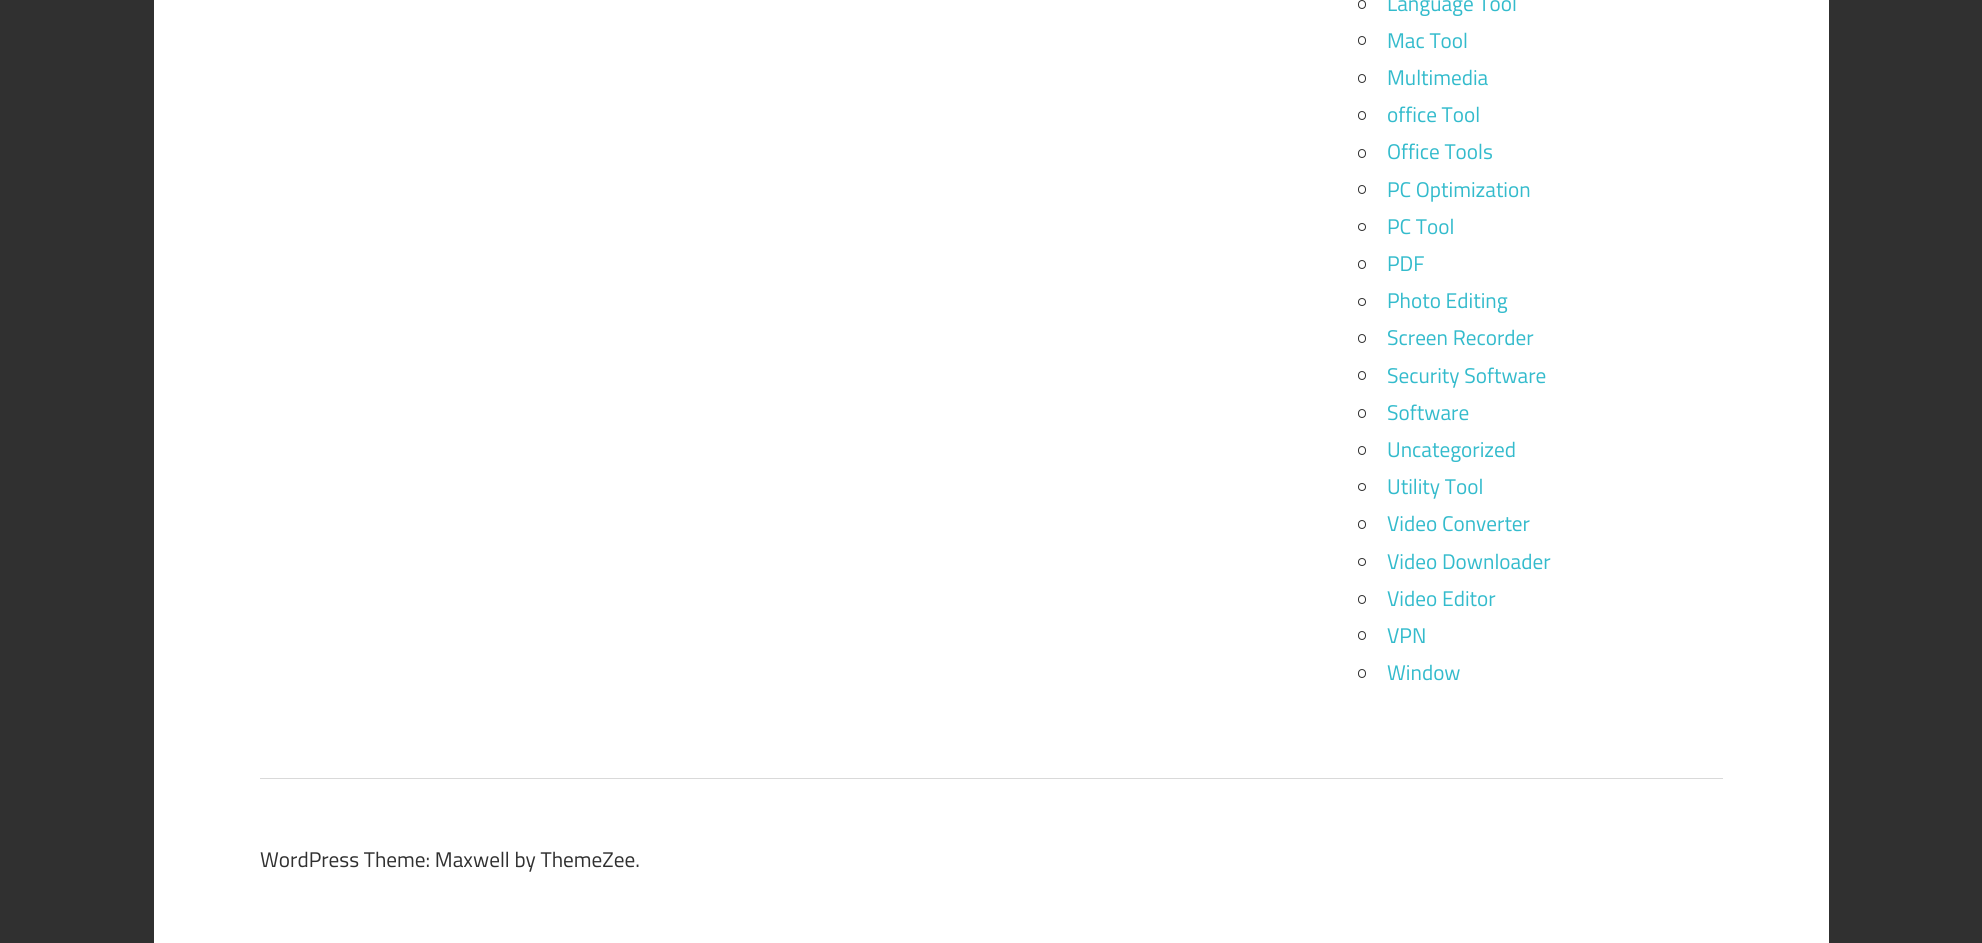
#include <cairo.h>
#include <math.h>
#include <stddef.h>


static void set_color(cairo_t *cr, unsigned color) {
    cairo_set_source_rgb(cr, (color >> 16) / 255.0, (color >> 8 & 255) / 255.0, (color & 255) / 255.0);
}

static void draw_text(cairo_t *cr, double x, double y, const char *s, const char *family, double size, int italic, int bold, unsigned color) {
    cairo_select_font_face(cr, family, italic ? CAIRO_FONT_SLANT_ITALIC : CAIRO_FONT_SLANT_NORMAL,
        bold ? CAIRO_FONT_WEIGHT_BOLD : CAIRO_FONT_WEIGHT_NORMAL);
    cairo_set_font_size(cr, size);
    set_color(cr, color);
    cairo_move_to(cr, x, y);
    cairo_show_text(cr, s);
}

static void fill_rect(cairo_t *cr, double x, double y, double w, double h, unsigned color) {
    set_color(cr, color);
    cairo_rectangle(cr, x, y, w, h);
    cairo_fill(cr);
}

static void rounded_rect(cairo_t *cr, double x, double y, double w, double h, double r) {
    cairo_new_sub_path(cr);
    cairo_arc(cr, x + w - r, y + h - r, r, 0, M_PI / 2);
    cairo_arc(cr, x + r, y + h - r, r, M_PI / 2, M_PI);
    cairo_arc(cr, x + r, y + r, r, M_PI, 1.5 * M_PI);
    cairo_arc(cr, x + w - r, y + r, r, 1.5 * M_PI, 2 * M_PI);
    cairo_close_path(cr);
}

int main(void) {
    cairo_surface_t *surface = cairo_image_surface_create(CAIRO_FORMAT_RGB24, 1982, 943);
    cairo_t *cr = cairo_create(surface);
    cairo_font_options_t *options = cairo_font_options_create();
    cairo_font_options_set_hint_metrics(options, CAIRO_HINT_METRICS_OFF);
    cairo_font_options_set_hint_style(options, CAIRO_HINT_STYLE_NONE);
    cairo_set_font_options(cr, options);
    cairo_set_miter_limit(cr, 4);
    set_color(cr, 0x303030);
    cairo_paint(cr);
    fill_rect(cr, 154, 0, 1675, 943, 0xFFFFFF);
    rounded_rect(cr, 1358.5, 0.5, 7, 8, 3.5);
    set_color(cr, 0x303030);
    cairo_set_line_width(cr, 1);
    cairo_stroke(cr);
    draw_text(cr, 1387, 11, "Language Tool", "Titillium Web", 21.25, 0, 0, 0x33BBCC);
    rounded_rect(cr, 1358.5, 36.5, 7, 8, 3.5);
    set_color(cr, 0x303030);
    cairo_stroke(cr);
    draw_text(cr, 1387, 48, "Mac Tool", "Titillium Web", 21.25, 0, 0, 0x33BBCC);
    rounded_rect(cr, 1358.5, 74.5, 7, 8, 3.5);
    set_color(cr, 0x303030);
    cairo_stroke(cr);
    draw_text(cr, 1387, 85, "Multimedia", "Titillium Web", 21.25, 0, 0, 0x33BBCC);
    rounded_rect(cr, 1358.5, 111.5, 7, 8, 3.5);
    set_color(cr, 0x303030);
    cairo_stroke(cr);
    draw_text(cr, 1387, 122, "office Tool", "Titillium Web", 21.25, 0, 0, 0x33BBCC);
    rounded_rect(cr, 1358.5, 149.5, 7, 8, 3.5);
    set_color(cr, 0x303030);
    cairo_stroke(cr);
    draw_text(cr, 1387, 159, "Office Tools", "Titillium Web", 21.25, 0, 0, 0x33BBCC);
    rounded_rect(cr, 1358.5, 185.5, 7, 8, 3.5);
    set_color(cr, 0x303030);
    cairo_stroke(cr);
    draw_text(cr, 1387, 197, "PC Optimization", "Titillium Web", 21.25, 0, 0, 0x33BBCC);
    cairo_new_path(cr);
    cairo_arc(cr, 1362, 227, 3.5, 0, 2 * M_PI);
    set_color(cr, 0x303030);
    cairo_stroke(cr);
    draw_text(cr, 1387, 234, "PC Tool", "Titillium Web", 21.25, 0, 0, 0x33BBCC);
    rounded_rect(cr, 1358.5, 260.5, 7, 8, 3.5);
    set_color(cr, 0x303030);
    cairo_stroke(cr);
    draw_text(cr, 1387, 271, "PDF", "Titillium Web", 21.25, 0, 0, 0x33BBCC);
    cairo_new_path(cr);
    cairo_arc(cr, 1362, 302, 3.5, 0, 2 * M_PI);
    set_color(cr, 0x303030);
    cairo_stroke(cr);
    draw_text(cr, 1387, 308, "Photo Editing", "Titillium Web", 21.25, 0, 0, 0x33BBCC);
    rounded_rect(cr, 1358.5, 334.5, 7, 8, 3.5);
    set_color(cr, 0x303030);
    cairo_stroke(cr);
    draw_text(cr, 1387, 345, "Screen Recorder", "Titillium Web", 21.25, 0, 0, 0x33BBCC);
    rounded_rect(cr, 1358.5, 371.5, 7, 8, 3.5);
    set_color(cr, 0x303030);
    cairo_stroke(cr);
    draw_text(cr, 1387, 383, "Security Software", "Titillium Web", 21.25, 0, 0, 0x33BBCC);
    rounded_rect(cr, 1358.5, 409.5, 7, 8, 3.5);
    set_color(cr, 0x303030);
    cairo_stroke(cr);
    draw_text(cr, 1387, 420, "Software", "Titillium Web", 21.25, 0, 0, 0x33BBCC);
    rounded_rect(cr, 1358.5, 446.5, 7, 8, 3.5);
    set_color(cr, 0x303030);
    cairo_stroke(cr);
    draw_text(cr, 1387, 457, "Uncategorized", "Titillium Web", 21.25, 0, 0, 0x33BBCC);
    cairo_new_path(cr);
    cairo_arc(cr, 1362, 487, 3.5, 0, 2 * M_PI);
    set_color(cr, 0x303030);
    cairo_stroke(cr);
    draw_text(cr, 1387, 494, "Utility Tool", "Titillium Web", 21.25, 0, 0, 0x33BBCC);
    rounded_rect(cr, 1358.5, 520.5, 7, 8, 3.5);
    set_color(cr, 0x303030);
    cairo_stroke(cr);
    draw_text(cr, 1387, 531, "Video Converter", "Titillium Web", 21.25, 0, 0, 0x33BBCC);
    cairo_new_path(cr);
    cairo_arc(cr, 1362, 562, 3.5, 0, 2 * M_PI);
    set_color(cr, 0x303030);
    cairo_stroke(cr);
    draw_text(cr, 1387, 569, "Video Downloader", "Titillium Web", 21.25, 0, 0, 0x33BBCC);
    rounded_rect(cr, 1358.5, 595.5, 7, 8, 3.5);
    set_color(cr, 0x303030);
    cairo_stroke(cr);
    draw_text(cr, 1387, 606, "Video Editor", "Titillium Web", 21.25, 0, 0, 0x33BBCC);
    rounded_rect(cr, 1358.5, 631.5, 7, 8, 3.5);
    set_color(cr, 0x303030);
    cairo_stroke(cr);
    draw_text(cr, 1387, 643, "VPN", "Titillium Web", 21.25, 0, 0, 0x33BBCC);
    rounded_rect(cr, 1358.5, 669.5, 7, 8, 3.5);
    set_color(cr, 0x303030);
    cairo_stroke(cr);
    draw_text(cr, 1387, 680, "Window", "Titillium Web", 21.25, 0, 0, 0x33BBCC);
    fill_rect(cr, 260, 778, 1463, 1, 0xD9D9D9);
    draw_text(cr, 260, 867, "WordPress Theme: Maxwell by ThemeZee.", "Titillium Web", 21.25, 0, 0, 0x303030);
    cairo_surface_write_to_png(surface, "output.png");
    cairo_font_options_destroy(options);
    cairo_destroy(cr);
    cairo_surface_destroy(surface);
    return 0;
}
